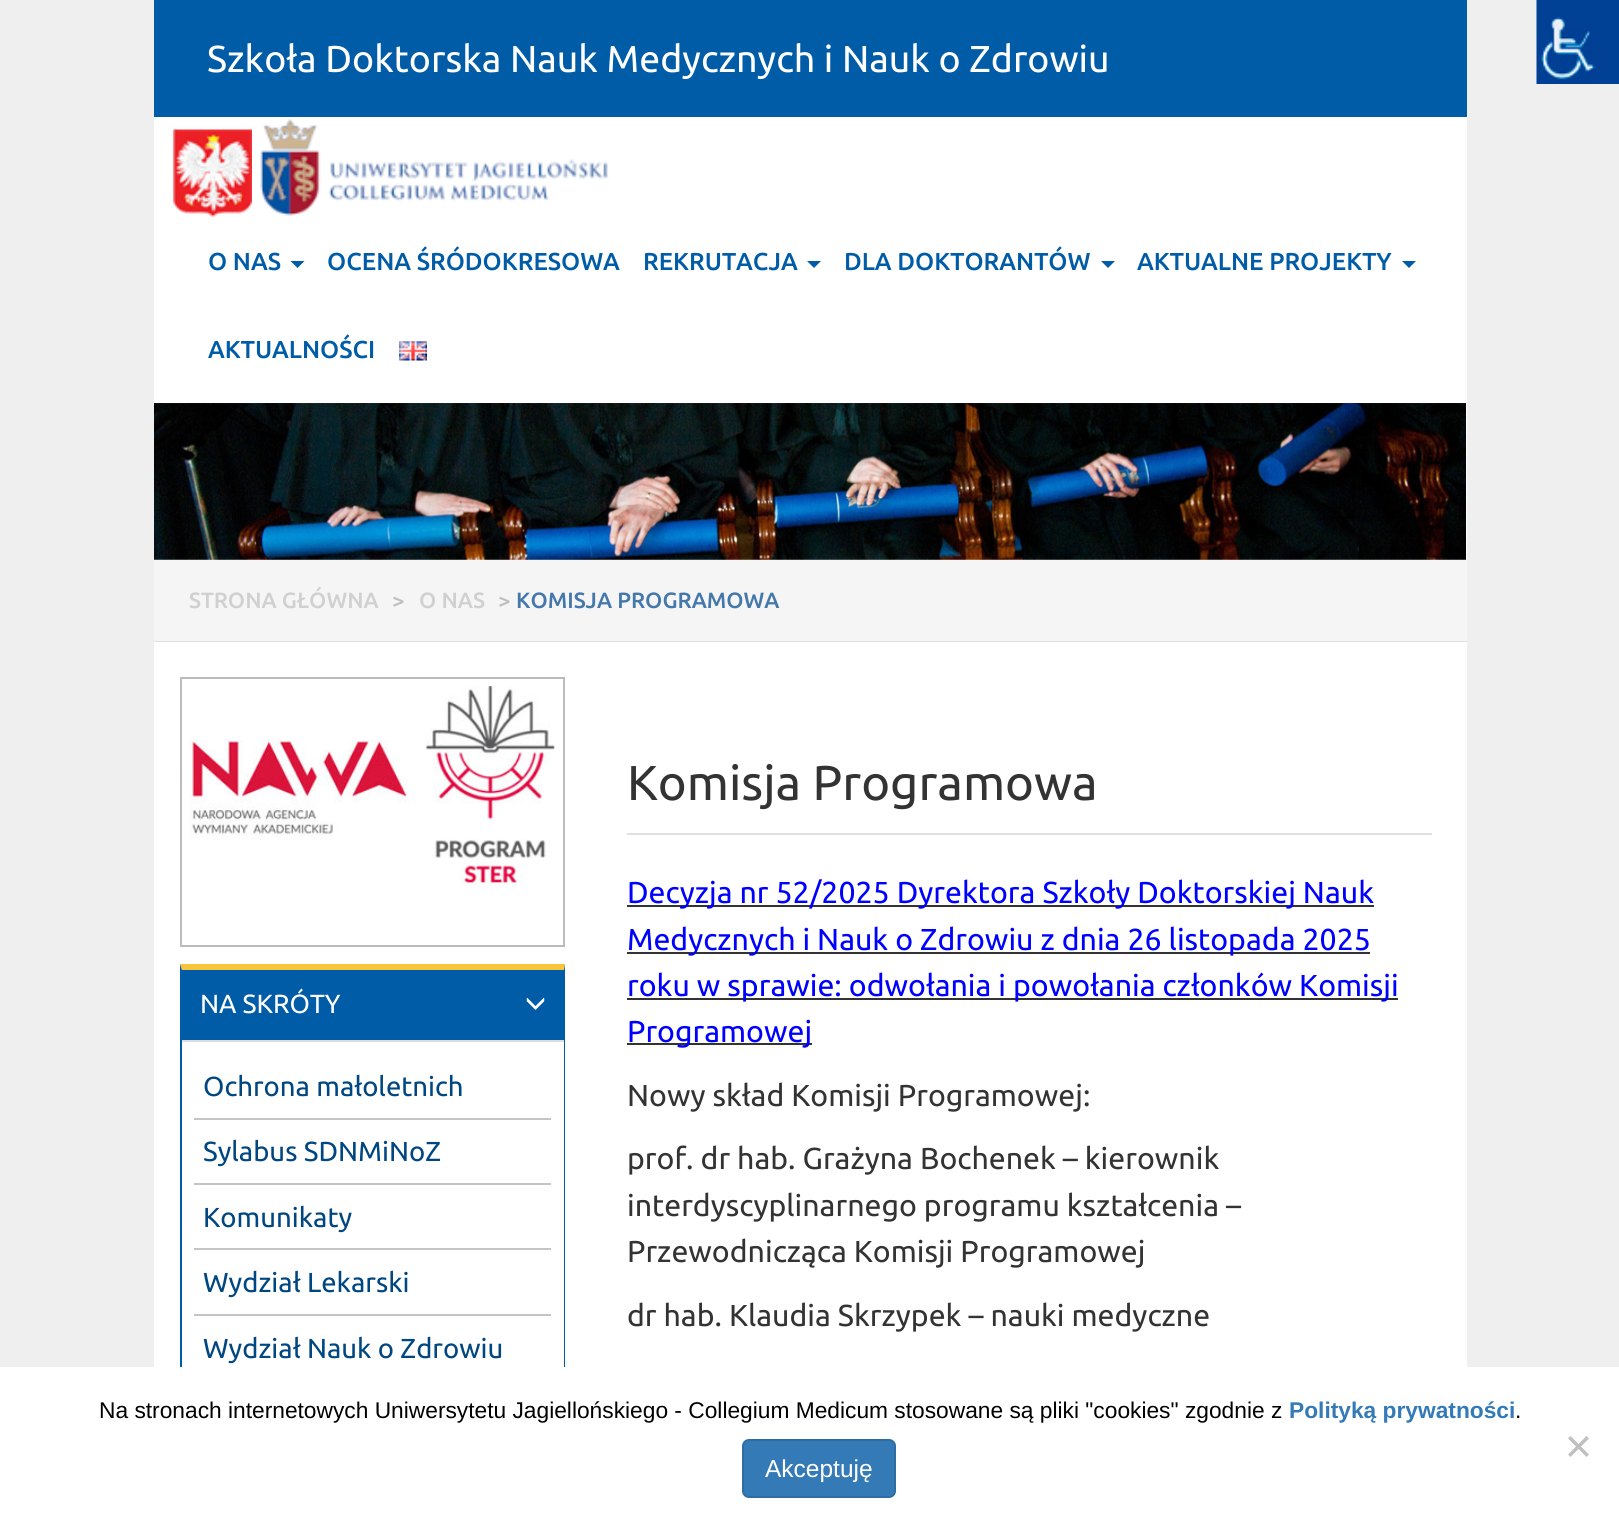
#include <cairo.h>
#include <math.h>
#include <stddef.h>


static void set_color(cairo_t *cr, unsigned color) {
    cairo_set_source_rgb(cr, (color >> 16) / 255.0, (color >> 8 & 255) / 255.0, (color & 255) / 255.0);
}

static void draw_text(cairo_t *cr, double x, double y, const char *s, const char *family, double size, int italic, int bold, unsigned color) {
    cairo_select_font_face(cr, family, italic ? CAIRO_FONT_SLANT_ITALIC : CAIRO_FONT_SLANT_NORMAL,
        bold ? CAIRO_FONT_WEIGHT_BOLD : CAIRO_FONT_WEIGHT_NORMAL);
    cairo_set_font_size(cr, size);
    set_color(cr, color);
    cairo_move_to(cr, x, y);
    cairo_show_text(cr, s);
}

static void fill_rect(cairo_t *cr, double x, double y, double w, double h, unsigned color) {
    set_color(cr, color);
    cairo_rectangle(cr, x, y, w, h);
    cairo_fill(cr);
}

static void rounded_rect(cairo_t *cr, double x, double y, double w, double h, double r) {
    cairo_new_sub_path(cr);
    cairo_arc(cr, x + w - r, y + h - r, r, 0, M_PI / 2);
    cairo_arc(cr, x + r, y + h - r, r, M_PI / 2, M_PI);
    cairo_arc(cr, x + r, y + r, r, M_PI, 1.5 * M_PI);
    cairo_arc(cr, x + w - r, y + r, r, 1.5 * M_PI, 2 * M_PI);
    cairo_close_path(cr);
}

static void draw_image(cairo_t *cr, const char *path, double x, double y, double w, double h) {
    cairo_surface_t *image = cairo_image_surface_create_from_png(path);
    cairo_save(cr);
    cairo_set_source_surface(cr, image, x, y);
    cairo_rectangle(cr, x, y, w, h);
    cairo_fill(cr);
    cairo_restore(cr);
    cairo_surface_destroy(image);
}

int main(void) {
    cairo_surface_t *surface = cairo_image_surface_create(CAIRO_FORMAT_RGB24, 1619, 1523);
    cairo_t *cr = cairo_create(surface);
    cairo_font_options_t *options = cairo_font_options_create();
    cairo_font_options_set_hint_metrics(options, CAIRO_HINT_METRICS_OFF);
    cairo_font_options_set_hint_style(options, CAIRO_HINT_STYLE_NONE);
    cairo_set_font_options(cr, options);
    cairo_set_miter_limit(cr, 4);
    set_color(cr, 0xEFEFEF);
    cairo_paint(cr);
    fill_rect(cr, 154, 0, 1313, 117, 0x005CA7);
    draw_text(cr, 207, 72, "Szkoła Doktorska Nauk Medycznych i Nauk o Zdrowiu", "Ubuntu", 37.5, 0, 0, 0xFFFFFF);
    fill_rect(cr, 154, 117, 1313, 443, 0xFFFFFF);
    draw_image(cr, "assets/img1.png", 154, 403, 1312, 157);
    draw_image(cr, "assets/img2.png", 173, 129, 79, 88);
    draw_image(cr, "assets/img3.png", 260, 119, 349, 97);
    draw_text(cr, 208, 270, "O NAS", "Ubuntu Medium", 24.5, 0, 0, 0x005CA7);
    cairo_new_path(cr);
    cairo_move_to(cr, 290.5, 261);
    cairo_line_to(cr, 304.5, 261);
    cairo_line_to(cr, 297.5, 268);
    cairo_close_path(cr);
    cairo_fill(cr);
    draw_text(cr, 327, 270, "OCENA ŚRÓDOKRESOWA", "Ubuntu Medium", 24.5, 0, 0, 0x005CA7);
    draw_text(cr, 643, 270, "REKRUTACJA", "Ubuntu Medium", 24.5, 0, 0, 0x005CA7);
    cairo_new_path(cr);
    cairo_move_to(cr, 807, 261);
    cairo_line_to(cr, 821, 261);
    cairo_line_to(cr, 814, 268);
    cairo_close_path(cr);
    cairo_fill(cr);
    draw_text(cr, 844, 270, "DLA DOKTORANTÓW", "Ubuntu Medium", 24.5, 0, 0, 0x005CA7);
    cairo_new_path(cr);
    cairo_move_to(cr, 1101, 261);
    cairo_line_to(cr, 1115, 261);
    cairo_line_to(cr, 1108, 268);
    cairo_close_path(cr);
    cairo_fill(cr);
    draw_text(cr, 1137, 270, "AKTUALNE PROJEKTY", "Ubuntu Medium", 24.5, 0, 0, 0x005CA7);
    cairo_new_path(cr);
    cairo_move_to(cr, 1402, 261);
    cairo_line_to(cr, 1416, 261);
    cairo_line_to(cr, 1409, 268);
    cairo_close_path(cr);
    cairo_fill(cr);
    draw_text(cr, 208, 358, "AKTUALNOŚCI", "Ubuntu Medium", 24.5, 0, 0, 0x005CA7);
    draw_image(cr, "assets/img4.png", 399, 341, 28, 20);
    fill_rect(cr, 154, 560, 1313, 81, 0xF5F5F5);
    fill_rect(cr, 154, 641, 1313, 1, 0xE0E0E0);
    draw_text(cr, 189, 608, "STRONA GŁÓWNA", "Ubuntu Medium", 22.1, 0, 0, 0xD0D0D0);
    draw_text(cr, 392, 608, ">", "Ubuntu Medium", 22.1, 0, 0, 0xC0C0C0);
    draw_text(cr, 419, 608, "O NAS", "Ubuntu Medium", 22.1, 0, 0, 0xD0D0D0);
    draw_text(cr, 498, 608, ">", "Ubuntu Medium", 22.1, 0, 0, 0xC0C0C0);
    draw_text(cr, 516, 608, "KOMISJA PROGRAMOWA", "Ubuntu Medium", 22.1, 0, 0, 0x4477AA);
    fill_rect(cr, 154, 642, 1313, 725, 0xFFFFFF);
    cairo_rectangle(cr, 181, 678, 383, 268);
    set_color(cr, 0xBBBBBB);
    cairo_stroke(cr);
    draw_image(cr, "assets/img5.png", 189, 686, 366, 199);
    set_color(cr, 0xF8C53A);
    cairo_new_path(cr);
    cairo_move_to(cr, 180, 964);
    cairo_line_to(cr, 565, 964);
    cairo_line_to(cr, 564, 970);
    cairo_line_to(cr, 182, 970);
    cairo_close_path(cr);
    cairo_fill(cr);
    set_color(cr, 0x005CA7);
    cairo_new_path(cr);
    cairo_move_to(cr, 565, 964);
    cairo_line_to(cr, 565, 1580);
    cairo_line_to(cr, 564, 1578);
    cairo_line_to(cr, 564, 970);
    cairo_close_path(cr);
    cairo_fill(cr);
    cairo_new_path(cr);
    cairo_move_to(cr, 180, 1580);
    cairo_line_to(cr, 180, 964);
    cairo_line_to(cr, 182, 970);
    cairo_line_to(cr, 182, 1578);
    cairo_close_path(cr);
    cairo_fill(cr);
    fill_rect(cr, 182, 970, 382, 70, 0x005CA7);
    draw_text(cr, 200, 1013, "NA SKRÓTY", "Ubuntu", 26.25, 0, 0, 0xFFFFFF);
    draw_image(cr, "assets/img6.png", 526, 997, 19, 13);
    fill_rect(cr, 182, 1040, 382, 2, 0xDDDDDD);
    fill_rect(cr, 194, 1118, 357, 2, 0xC4C4C4);
    draw_text(cr, 203, 1096, "Ochrona małoletnich", "Ubuntu", 27.5, 0, 0, 0x004680);
    fill_rect(cr, 194, 1183, 357, 2, 0xC4C4C4);
    draw_text(cr, 203, 1161, "Sylabus SDNMiNoZ", "Ubuntu", 27.5, 0, 0, 0x004680);
    fill_rect(cr, 194, 1248, 357, 2, 0xC4C4C4);
    draw_text(cr, 203, 1227, "Komunikaty", "Ubuntu", 27.5, 0, 0, 0x004680);
    fill_rect(cr, 194, 1314, 357, 2, 0xC4C4C4);
    draw_text(cr, 203, 1292, "Wydział Lekarski", "Ubuntu", 27.5, 0, 0, 0x004680);
    draw_text(cr, 203, 1358, "Wydział Nauk o Zdrowiu", "Ubuntu", 27.5, 0, 0, 0x004680);
    draw_text(cr, 627, 800, "Komisja Programowa", "Ubuntu", 49, 0, 0, 0x333333);
    fill_rect(cr, 627, 833, 805, 2, 0xE0E0E0);
    fill_rect(cr, 627, 905, 747, 2, 0x333333);
    draw_text(cr, 627, 903, "Decyzja nr 52/2025 Dyrektora Szkoły Doktorskiej Nauk", "Ubuntu", 30.3, 0, 0, 0x0000FF);
    fill_rect(cr, 627, 952, 743, 2, 0x333333);
    draw_text(cr, 627, 950, "Medycznych i Nauk o Zdrowiu z dnia 26 listopada 2025", "Ubuntu", 30.3, 0, 0, 0x0000FF);
    fill_rect(cr, 627, 998, 771, 2, 0x333333);
    draw_text(cr, 627, 996, "roku w sprawie: odwołania i powołania członków Komisji", "Ubuntu", 30.3, 0, 0, 0x0000FF);
    fill_rect(cr, 627, 1043, 185, 2, 0x333333);
    draw_text(cr, 627, 1042, "Programowej", "Ubuntu", 30.3, 0, 0, 0x0000FF);
    draw_text(cr, 627, 1106, "Nowy skład Komisji Programowej:", "Ubuntu", 30.3, 0, 0, 0x333333);
    draw_text(cr, 627, 1169, "prof. dr hab. Grażyna Bochenek – kierownik", "Ubuntu", 30.3, 0, 0, 0x333333);
    draw_text(cr, 627, 1216, "interdyscyplinarnego programu kształcenia –", "Ubuntu", 30.3, 0, 0, 0x333333);
    draw_text(cr, 627, 1262, "Przewodnicząca Komisji Programowej", "Ubuntu", 30.3, 0, 0, 0x333333);
    draw_text(cr, 627, 1326, "dr hab. Klaudia Skrzypek – nauki medyczne", "Ubuntu", 30.3, 0, 0, 0x333333);
    draw_image(cr, "assets/img7.png", 1536, 0, 83, 84);
    fill_rect(cr, 0, 1367, 1619, 156, 0xFFFFFF);
    draw_text(cr, 99, 1418, "Na stronach internetowych Uniwersytetu Jagiellońskiego - Collegium Medicum stosowane są pliki \"cookies\" zgodnie z", "Liberation Sans", 22.75, 0, 0, 0x000000);
    draw_text(cr, 1289, 1418, "Polityką prywatności", "Liberation Sans", 22.75, 0, 1, 0x337AB7);
    draw_text(cr, 1515, 1418, ".", "Liberation Sans", 22.75, 0, 0, 0x000000);
    set_color(cr, 0xC0C0C0);
    cairo_new_path(cr);
    cairo_move_to(cr, 1586.5, 1436);
    cairo_line_to(cr, 1589, 1438.5);
    cairo_line_to(cr, 1570.5, 1457);
    cairo_line_to(cr, 1568, 1454.5);
    cairo_close_path(cr);
    cairo_fill(cr);
    cairo_new_path(cr);
    cairo_move_to(cr, 1568, 1438.5);
    cairo_line_to(cr, 1570.5, 1436);
    cairo_line_to(cr, 1589, 1454.5);
    cairo_line_to(cr, 1586.5, 1457);
    cairo_close_path(cr);
    cairo_fill(cr);
    set_color(cr, 0x337AB7);
    rounded_rect(cr, 743, 1440, 152, 57, 6);
    cairo_fill_preserve(cr);
    set_color(cr, 0x2E6DA4);
    cairo_stroke(cr);
    draw_text(cr, 765, 1477, "Akceptuję", "Liberation Sans", 24.5, 0, 0, 0xFFFFFF);
    cairo_surface_write_to_png(surface, "output.png");
    cairo_font_options_destroy(options);
    cairo_destroy(cr);
    cairo_surface_destroy(surface);
    return 0;
}
